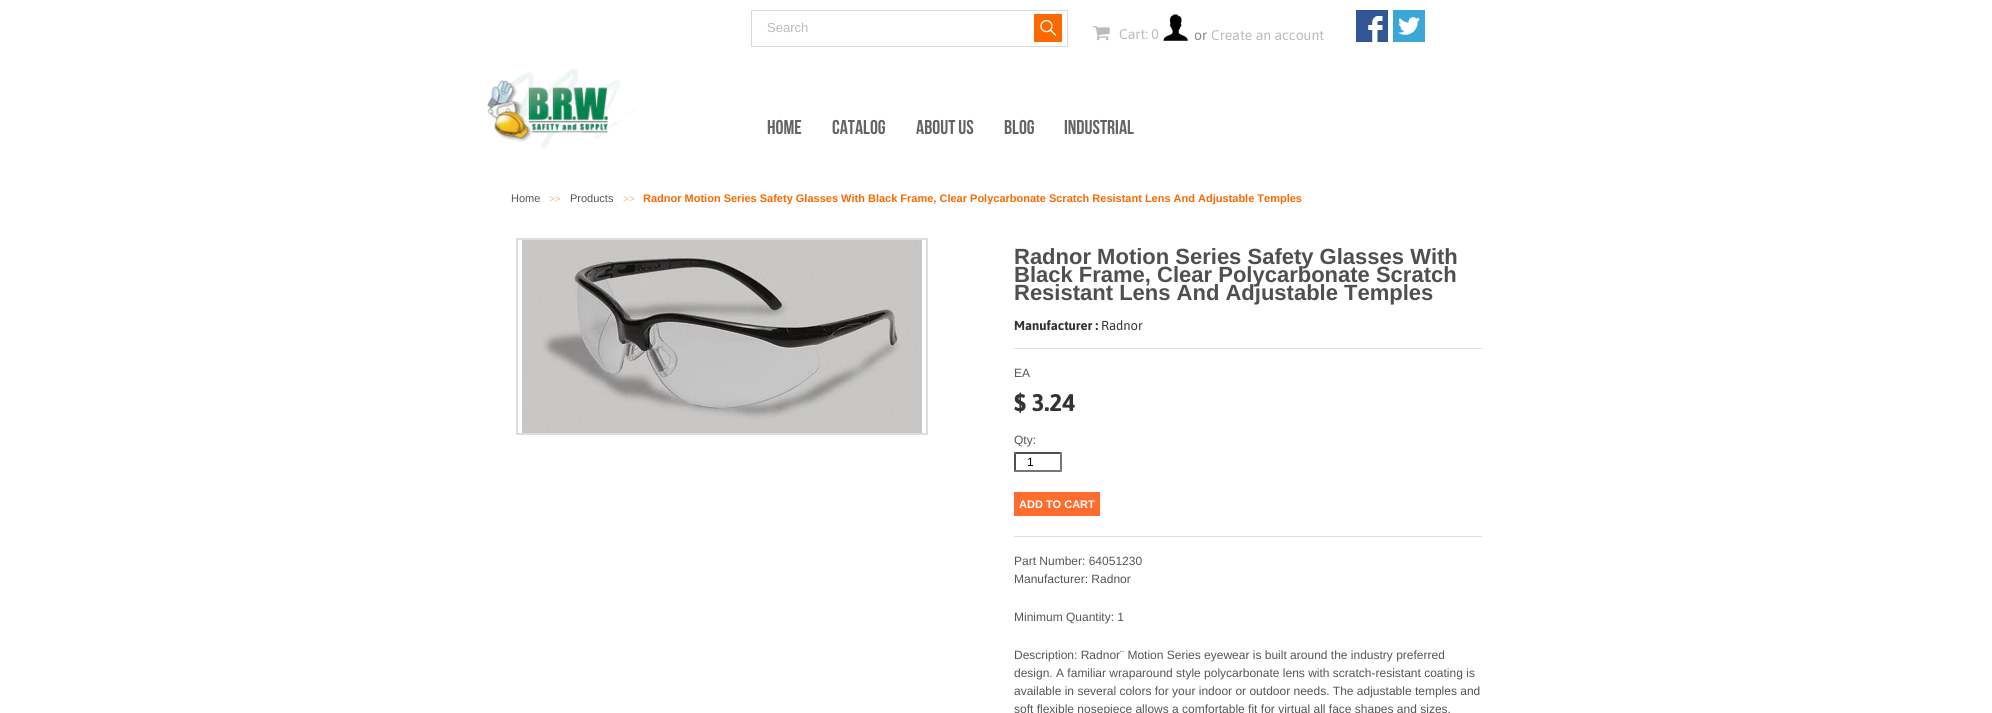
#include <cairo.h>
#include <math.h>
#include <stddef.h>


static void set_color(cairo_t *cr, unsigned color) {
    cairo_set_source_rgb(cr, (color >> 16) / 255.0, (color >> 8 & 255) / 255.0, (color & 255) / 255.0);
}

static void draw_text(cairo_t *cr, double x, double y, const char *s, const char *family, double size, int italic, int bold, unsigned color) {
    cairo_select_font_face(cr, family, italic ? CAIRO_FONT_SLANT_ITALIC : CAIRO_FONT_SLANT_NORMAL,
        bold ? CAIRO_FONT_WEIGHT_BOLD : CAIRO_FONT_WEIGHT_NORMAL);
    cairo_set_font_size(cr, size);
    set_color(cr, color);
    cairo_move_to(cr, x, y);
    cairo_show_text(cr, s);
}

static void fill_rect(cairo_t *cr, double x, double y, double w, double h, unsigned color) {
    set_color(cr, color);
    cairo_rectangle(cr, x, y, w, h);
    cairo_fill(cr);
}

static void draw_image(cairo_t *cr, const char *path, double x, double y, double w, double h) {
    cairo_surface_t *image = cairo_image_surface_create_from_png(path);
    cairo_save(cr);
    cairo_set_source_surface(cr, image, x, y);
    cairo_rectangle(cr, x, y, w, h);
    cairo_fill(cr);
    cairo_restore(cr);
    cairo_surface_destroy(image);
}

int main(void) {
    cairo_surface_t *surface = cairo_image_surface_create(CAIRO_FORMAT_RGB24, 1992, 713);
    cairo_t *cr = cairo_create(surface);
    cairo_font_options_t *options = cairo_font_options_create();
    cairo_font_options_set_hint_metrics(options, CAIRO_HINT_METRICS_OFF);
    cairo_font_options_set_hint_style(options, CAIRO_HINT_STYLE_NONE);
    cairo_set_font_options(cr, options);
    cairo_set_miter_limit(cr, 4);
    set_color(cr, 0xFFFFFF);
    cairo_paint(cr);
    cairo_rectangle(cr, 751.5, 10.5, 316, 36);
    set_color(cr, 0xD9D9D9);
    cairo_set_line_width(cr, 1);
    cairo_stroke(cr);
    draw_text(cr, 767, 32, "Search", "Liberation Sans", 13, 0, 0, 0xBBBBBB);
    draw_image(cr, "assets/img1.png", 1034, 14, 28, 28);
    draw_image(cr, "assets/img2.png", 1356, 10, 32, 32);
    draw_image(cr, "assets/img3.png", 1393, 10, 32, 32);
    draw_image(cr, "assets/img4.png", 1093, 26, 17, 15);
    draw_text(cr, 1119, 39, "Cart: 0", "Asap", 14, 0, 0, 0xBBBBBB);
    draw_image(cr, "assets/img5.png", 1163, 14, 25, 27);
    draw_text(cr, 1194, 40, "or", "Asap", 14, 0, 0, 0x888888);
    draw_text(cr, 1211, 40, "Create an account", "Asap", 14, 0, 0, 0xBBBBBB);
    draw_image(cr, "assets/img6.png", 487, 69, 149, 79);
    draw_text(cr, 767, 134, "HOME", "Bebas Neue", 20, 0, 0, 0x646464);
    draw_text(cr, 832, 134, "CATALOG", "Bebas Neue", 20, 0, 0, 0x646464);
    draw_text(cr, 916, 134, "ABOUT US", "Bebas Neue", 20, 0, 0, 0x646464);
    draw_text(cr, 1004, 134, "BLOG", "Bebas Neue", 20, 0, 0, 0x646464);
    draw_text(cr, 1064, 134, "INDUSTRIAL", "Bebas Neue", 20, 0, 0, 0x646464);
    draw_text(cr, 511, 202, "Home", "Liberation Sans", 11, 0, 0, 0x555555);
    draw_text(cr, 549, 202, ">>", "Liberation Sans", 10, 0, 0, 0xFDB480);
    draw_text(cr, 570, 202, "Products", "Liberation Sans", 11, 0, 0, 0x555555);
    draw_text(cr, 623, 202, ">>", "Liberation Sans", 10, 0, 0, 0xFDB480);
    draw_text(cr, 643, 202, "Radnor Motion Series Safety Glasses With Black Frame, Clear Polycarbonate Scratch Resistant Lens And Adjustable Temples", "Liberation Sans", 11, 0, 1, 0xFB6900);
    cairo_rectangle(cr, 517, 239, 410, 195);
    set_color(cr, 0xDDDDDD);
    cairo_set_line_width(cr, 2);
    cairo_stroke(cr);
    draw_image(cr, "assets/img7.png", 522, 240, 400, 193);
    draw_text(cr, 1014, 264, "Radnor Motion Series Safety Glasses With", "Liberation Sans", 22, 0, 1, 0x4F4F4F);
    draw_text(cr, 1014, 282, "Black Frame, Clear Polycarbonate Scratch", "Liberation Sans", 22, 0, 1, 0x4F4F4F);
    draw_text(cr, 1014, 300, "Resistant Lens And Adjustable Temples", "Liberation Sans", 22, 0, 1, 0x4F4F4F);
    draw_text(cr, 1014, 330, "Manufacturer :", "Asap", 13, 0, 1, 0x333333);
    draw_text(cr, 1101, 330, "Radnor", "Asap", 13, 0, 0, 0x333333);
    fill_rect(cr, 1014, 348, 468, 1, 0xDDDDDD);
    fill_rect(cr, 1014, 536, 468, 1, 0xDDDDDD);
    draw_text(cr, 1014, 377, "EA", "Liberation Sans", 12, 0, 0, 0x555555);
    draw_text(cr, 1014, 411, "$ 3.24", "Asap", 24, 0, 1, 0x333333);
    draw_text(cr, 1014, 444, "Qty:", "Liberation Sans", 12, 0, 0, 0x555555);
    set_color(cr, 0x4F4F4F);
    cairo_new_path(cr);
    cairo_move_to(cr, 1014, 452);
    cairo_line_to(cr, 1062, 452);
    cairo_line_to(cr, 1060, 454);
    cairo_line_to(cr, 1016, 454);
    cairo_close_path(cr);
    cairo_fill(cr);
    set_color(cr, 0x767676);
    cairo_new_path(cr);
    cairo_move_to(cr, 1062, 452);
    cairo_line_to(cr, 1062, 472);
    cairo_line_to(cr, 1060, 470);
    cairo_line_to(cr, 1060, 454);
    cairo_close_path(cr);
    cairo_fill(cr);
    cairo_new_path(cr);
    cairo_move_to(cr, 1062, 472);
    cairo_line_to(cr, 1014, 472);
    cairo_line_to(cr, 1016, 470);
    cairo_line_to(cr, 1060, 470);
    cairo_close_path(cr);
    cairo_fill(cr);
    set_color(cr, 0x4F4F4F);
    cairo_new_path(cr);
    cairo_move_to(cr, 1014, 472);
    cairo_line_to(cr, 1014, 452);
    cairo_line_to(cr, 1016, 454);
    cairo_line_to(cr, 1016, 470);
    cairo_close_path(cr);
    cairo_fill(cr);
    draw_text(cr, 1027, 466, "1", "Liberation Sans", 12, 0, 0, 0x000000);
    fill_rect(cr, 1014, 492, 86, 24, 0xFF6D2E);
    draw_text(cr, 1019, 508, "ADD TO CART", "Liberation Sans", 11, 0, 1, 0xFFFFFF);
    draw_text(cr, 1014, 565, "Part Number: 64051230", "Liberation Sans", 12, 0, 0, 0x555555);
    draw_text(cr, 1014, 583, "Manufacturer: Radnor", "Liberation Sans", 12, 0, 0, 0x555555);
    draw_text(cr, 1014, 621, "Minimum Quantity: 1", "Liberation Sans", 12, 0, 0, 0x555555);
    draw_text(cr, 1014, 659, "Description: Radnor¨ Motion Series eyewear is built around the industry preferred", "Liberation Sans", 12, 0, 0, 0x555555);
    draw_text(cr, 1014, 677, "design. A familiar wraparound style polycarbonate lens with scratch-resistant coating is", "Liberation Sans", 12, 0, 0, 0x555555);
    draw_text(cr, 1014, 695, "available in several colors for your indoor or outdoor needs. The adjustable temples and", "Liberation Sans", 12, 0, 0, 0x555555);
    draw_text(cr, 1014, 713, "soft flexible nosepiece allows a comfortable fit for virtual all face shapes and sizes.", "Liberation Sans", 12, 0, 0, 0x555555);
    cairo_surface_write_to_png(surface, "output.png");
    cairo_font_options_destroy(options);
    cairo_destroy(cr);
    cairo_surface_destroy(surface);
    return 0;
}
